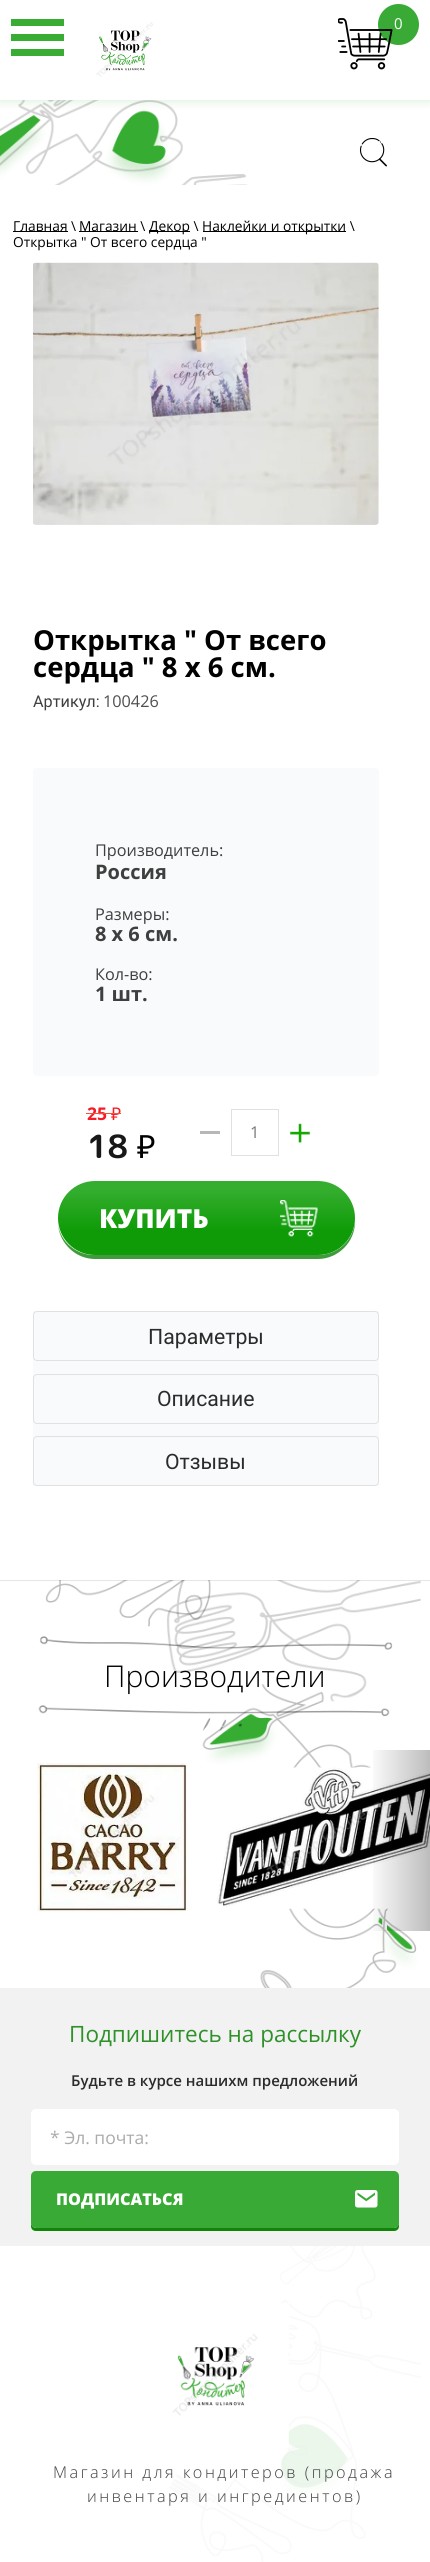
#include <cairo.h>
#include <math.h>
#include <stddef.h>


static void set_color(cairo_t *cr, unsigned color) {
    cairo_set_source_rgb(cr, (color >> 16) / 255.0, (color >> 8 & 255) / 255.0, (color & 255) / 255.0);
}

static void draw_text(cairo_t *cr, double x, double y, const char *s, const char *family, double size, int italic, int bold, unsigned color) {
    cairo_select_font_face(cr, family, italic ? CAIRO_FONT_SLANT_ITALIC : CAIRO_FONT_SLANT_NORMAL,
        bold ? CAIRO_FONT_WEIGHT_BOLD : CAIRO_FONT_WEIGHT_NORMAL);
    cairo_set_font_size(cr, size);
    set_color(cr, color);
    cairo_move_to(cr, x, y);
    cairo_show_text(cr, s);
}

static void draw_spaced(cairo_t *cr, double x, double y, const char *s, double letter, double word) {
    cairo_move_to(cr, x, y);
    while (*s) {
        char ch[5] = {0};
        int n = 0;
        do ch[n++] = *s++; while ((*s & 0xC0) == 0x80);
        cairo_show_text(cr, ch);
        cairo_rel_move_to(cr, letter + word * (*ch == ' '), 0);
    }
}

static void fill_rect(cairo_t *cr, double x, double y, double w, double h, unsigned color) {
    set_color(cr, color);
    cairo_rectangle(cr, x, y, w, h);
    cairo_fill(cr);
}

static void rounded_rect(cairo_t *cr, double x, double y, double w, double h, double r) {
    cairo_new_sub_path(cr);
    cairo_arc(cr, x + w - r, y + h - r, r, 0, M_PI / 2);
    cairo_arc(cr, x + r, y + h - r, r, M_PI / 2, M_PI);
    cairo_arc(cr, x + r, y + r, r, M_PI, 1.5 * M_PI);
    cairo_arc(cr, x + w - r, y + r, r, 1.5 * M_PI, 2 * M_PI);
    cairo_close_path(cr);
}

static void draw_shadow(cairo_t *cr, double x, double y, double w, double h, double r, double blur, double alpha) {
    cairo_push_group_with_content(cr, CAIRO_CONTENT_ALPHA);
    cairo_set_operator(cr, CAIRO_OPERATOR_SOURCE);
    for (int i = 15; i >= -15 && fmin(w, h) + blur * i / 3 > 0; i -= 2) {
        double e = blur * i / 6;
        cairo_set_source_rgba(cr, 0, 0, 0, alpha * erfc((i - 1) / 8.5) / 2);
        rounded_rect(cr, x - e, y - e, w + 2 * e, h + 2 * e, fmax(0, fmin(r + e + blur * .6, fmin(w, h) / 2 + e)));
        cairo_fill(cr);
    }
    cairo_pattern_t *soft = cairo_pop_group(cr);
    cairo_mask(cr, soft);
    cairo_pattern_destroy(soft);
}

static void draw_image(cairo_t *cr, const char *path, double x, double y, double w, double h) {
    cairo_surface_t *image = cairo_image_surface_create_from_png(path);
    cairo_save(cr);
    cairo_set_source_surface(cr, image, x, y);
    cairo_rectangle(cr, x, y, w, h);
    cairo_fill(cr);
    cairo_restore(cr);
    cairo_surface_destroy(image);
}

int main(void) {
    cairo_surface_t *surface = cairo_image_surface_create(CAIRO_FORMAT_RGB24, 430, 2562);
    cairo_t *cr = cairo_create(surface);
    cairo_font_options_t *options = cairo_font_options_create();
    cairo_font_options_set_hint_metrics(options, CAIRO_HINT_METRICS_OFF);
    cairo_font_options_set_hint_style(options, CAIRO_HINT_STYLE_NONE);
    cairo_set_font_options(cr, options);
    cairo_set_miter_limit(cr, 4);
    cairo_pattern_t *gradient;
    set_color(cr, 0xFFFFFF);
    cairo_paint(cr);
    draw_image(cr, "assets/img1.png", 0, 100, 421, 2462);
    set_color(cr, 0x38AC33);
    draw_shadow(cr, 0, 0, 430, 100, 0, 5.5, 0.23);
    fill_rect(cr, 0, 0, 430, 100, 0xFFFFFF);
    fill_rect(cr, 11, 19, 53, 7, 0x38AC33);
    fill_rect(cr, 11, 34, 53, 7, 0x38AC33);
    fill_rect(cr, 11, 49, 53, 7, 0x38AC33);
    draw_image(cr, "assets/img2.png", 96, 22, 57, 55);
    set_color(cr, 0x3AAA36);
    cairo_arc(cr, 398.5, 24.5, 20.5, 0, 2 * M_PI);
    cairo_fill(cr);
    draw_image(cr, "assets/img3.png", 338, 18, 55, 52);
    draw_text(cr, 394, 29, "0", "Open Sans", 15, 0, 0, 0xFFFFFF);
    draw_image(cr, "assets/img4.png", 359, 138, 28, 29);
    cairo_set_source_rgba(cr, 0, 0, 0, 0.1);
    cairo_rectangle(cr, 0, 1580, 430, 1);
    cairo_fill(cr);
    fill_rect(cr, 0, 185, 421, 1395, 0xFFFFFF);
    fill_rect(cr, 13, 231, 55, 1, 0x000000);
    draw_text(cr, 13, 231, "Главная \\", "Open Sans", 13.75, 0, 0, 0x000000);
    fill_rect(cr, 79, 231, 59, 1, 0x000000);
    draw_text(cr, 79, 231, "Магазин \\", "Open Sans", 13.75, 0, 0, 0x000000);
    fill_rect(cr, 149, 231, 41, 1, 0x000000);
    draw_text(cr, 149, 231, "Декор \\", "Open Sans", 13.75, 0, 0, 0x000000);
    fill_rect(cr, 203, 231, 143, 1, 0x000000);
    draw_text(cr, 202, 231, "Наклейки и открытки \\", "Open Sans", 13.75, 0, 0, 0x000000);
    draw_text(cr, 13, 247, "Открытка \" От всего сердца \"", "Open Sans", 13.75, 0, 0, 0x000000);
    draw_image(cr, "assets/img5.png", 33, 262, 346, 263);
    draw_text(cr, 33, 650, "Открытка \" От всего", "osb", 27.5, 0, 1, 0x000000);
    draw_text(cr, 33, 677, "сердца \" 8 х 6 см.", "osb", 27.5, 0, 1, 0x000000);
    draw_text(cr, 33, 707, "Артикул:", "Roboto", 16.25, 0, 0, 0x3F3F3F);
    draw_text(cr, 103, 707, "100426", "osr", 16.25, 0, 0, 0x4F4F4F);
    set_color(cr, 0xF9FAFB);
    rounded_rect(cr, 33, 768, 346, 308, 4);
    cairo_fill(cr);
    draw_text(cr, 95, 856, "Производитель:", "osr", 16.25, 0, 0, 0x3F3F3F);
    draw_text(cr, 95, 879, "Россия", "osb", 20, 0, 1, 0x3F3F3F);
    draw_text(cr, 95, 920, "Размеры:", "osr", 16.25, 0, 0, 0x3F3F3F);
    draw_text(cr, 95, 941, "8 х 6 см.", "osb", 20, 0, 1, 0x3F3F3F);
    draw_text(cr, 95, 980, "Кол-во:", "osr", 16.25, 0, 0, 0x3F3F3F);
    draw_text(cr, 95, 1001, "1 шт.", "osb", 20, 0, 1, 0x3F3F3F);
    draw_text(cr, 87, 1120, "25", "osb", 17.5, 0, 1, 0xF61B26);
    draw_text(cr, 111, 1120, "₽", "Noto Sans", 17.5, 0, 0, 0xF61B26);
    fill_rect(cr, 86, 1113, 35, 1, 0xE9573E);
    draw_text(cr, 87, 1158, "18", "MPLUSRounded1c", 32, 0, 1, 0x181818);
    draw_text(cr, 137, 1158, "₽", "Noto Sans", 32, 0, 0, 0x000000);
    fill_rect(cr, 200, 1131, 20, 3, 0xB7B7B7);
    cairo_rectangle(cr, 231.5, 1109.5, 47, 46);
    set_color(cr, 0xE1E1E1);
    cairo_set_line_width(cr, 1);
    cairo_stroke(cr);
    draw_text(cr, 250, 1138, "1", "Open Sans", 16.25, 0, 0, 0x777777);
    draw_image(cr, "assets/img6.png", 290, 1123, 20, 20);
    set_color(cr, 0x3F9B3B);
    cairo_new_path(cr);
    cairo_move_to(cr, 58, 1225);
    cairo_curve_to(cr, 60, 1244, 76, 1259, 95, 1259);
    cairo_line_to(cr, 318, 1259);
    cairo_curve_to(cr, 338, 1259, 355, 1242, 355, 1222);
    cairo_line_to(cr, 355, 1220);
    cairo_curve_to(cr, 354, 1240, 338, 1255, 318, 1255);
    cairo_line_to(cr, 94, 1255);
    cairo_curve_to(cr, 76, 1255, 61, 1242, 58, 1225);
    cairo_close_path(cr);
    cairo_fill(cr);
    gradient = cairo_pattern_create_linear(206, 1255, 206, 1181);
    cairo_pattern_add_color_stop_rgba(gradient, 0.32, 0.055, 0.608, 0.027, 1);
    cairo_pattern_add_color_stop_rgba(gradient, 0.89, 0.208, 0.682, 0.184, 1);
    cairo_set_source(cr, gradient);
    cairo_pattern_destroy(gradient);
    rounded_rect(cr, 58, 1181, 297, 74, 37);
    cairo_fill(cr);
    draw_text(cr, 99, 1228, "КУПИТЬ", "Open Sans ExtraBold", 26.25, 0, 0, 0xFFFFFF);
    draw_image(cr, "assets/img7.png", 280, 1200, 38, 37);
    fill_rect(cr, 33, 1311, 346, 175, 0xF9FAFB);
    rounded_rect(cr, 33.5, 1311.5, 345, 49, 3.5);
    set_color(cr, 0xE1E1E1);
    cairo_stroke(cr);
    draw_text(cr, 148, 1344, "Параметры", "Roboto", 21.25, 0, 0, 0x2B2B2B);
    rounded_rect(cr, 33.5, 1374.5, 345, 49, 3.5);
    set_color(cr, 0xE1E1E1);
    cairo_stroke(cr);
    draw_text(cr, 157, 1406, "Описание", "Roboto", 21.25, 0, 0, 0x2B2B2B);
    rounded_rect(cr, 33.5, 1436.5, 345, 49, 3.5);
    set_color(cr, 0xE1E1E1);
    cairo_stroke(cr);
    draw_text(cr, 165, 1469, "Отзывы", "Roboto", 21.25, 0, 0, 0x2B2B2B);
    draw_image(cr, "assets/img8.png", 38, 1636, 355, 95);
    draw_text(cr, 104, 1687, "Производители", "Open Sans Light", 30, 0, 0, 0x000000);
    draw_image(cr, "assets/img10.png", 217, 1767, 213, 142);
    gradient = cairo_pattern_create_linear(430, 1841, 368, 1841);
    cairo_pattern_add_color_stop_rgba(gradient, 0, 0, 0, 0, 0.26);
    cairo_pattern_add_color_stop_rgba(gradient, 1, 0, 0, 0, 0);
    cairo_set_source(cr, gradient);
    cairo_pattern_destroy(gradient);
    cairo_rectangle(cr, 373, 1750, 57, 181);
    cairo_fill(cr);
    draw_image(cr, "assets/img9.png", 37, 1763, 151, 149);
    fill_rect(cr, 0, 1988, 430, 258, 0xF2F2F2);
    draw_text(cr, 69, 2042, "Подпишитесь на рассылку", "Open Sans", 22.5, 0, 0, 0x2F912A);
    draw_text(cr, 71, 2086, "Будьте в курсе нашихм предложений", "Open Sans SemiBold", 15, 0, 0, 0x2B2B2B);
    set_color(cr, 0xFFFFFF);
    rounded_rect(cr, 31, 2109, 368, 56, 5);
    cairo_fill(cr);
    draw_text(cr, 50, 2144, "* Эл. почта:", "Open Sans", 17.5, 0, 0, 0xABABAB);
    set_color(cr, 0x11850A);
    cairo_new_path(cr);
    cairo_move_to(cr, 31, 2178);
    cairo_line_to(cr, 31, 2226);
    cairo_curve_to(cr, 31, 2229, 33, 2231, 36, 2231);
    cairo_line_to(cr, 394, 2231);
    cairo_curve_to(cr, 397, 2231, 399, 2229, 399, 2226);
    cairo_line_to(cr, 399, 2178);
    cairo_line_to(cr, 399, 2222);
    cairo_curve_to(cr, 399, 2225, 397, 2228, 394, 2228);
    cairo_line_to(cr, 36, 2228);
    cairo_curve_to(cr, 33, 2228, 31, 2225, 31, 2222);
    cairo_close_path(cr);
    cairo_fill(cr);
    set_color(cr, 0x3AAA36);
    rounded_rect(cr, 31, 2171, 368, 57, 5);
    cairo_fill(cr);
    draw_image(cr, "assets/img11.png", 355, 2190, 23, 18);
    draw_text(cr, 56, 2205, "ПОДПИСАТЬСЯ", "Open Sans ExtraBold", 16.25, 0, 0, 0xFFFFFF);
    cairo_set_source_rgba(cr, 1, 1, 1, 0.9);
    cairo_rectangle(cr, 168, 2246, 253, 316);
    cairo_fill(cr);
    draw_image(cr, "assets/img12.png", 172, 2303, 117, 145);
    cairo_select_font_face(cr, "Open Sans Light", CAIRO_FONT_SLANT_NORMAL, CAIRO_FONT_WEIGHT_NORMAL);
    set_color(cr, 0x3F3F3F);
    draw_spaced(cr, 53, 2478, "Магазин для кондитеров (продажа", 2.5, 0);
    draw_spaced(cr, 87, 2502, "инвентаря и ингредиентов)", 2.5, 0);
    cairo_surface_write_to_png(surface, "output.png");
    cairo_font_options_destroy(options);
    cairo_destroy(cr);
    cairo_surface_destroy(surface);
    return 0;
}
